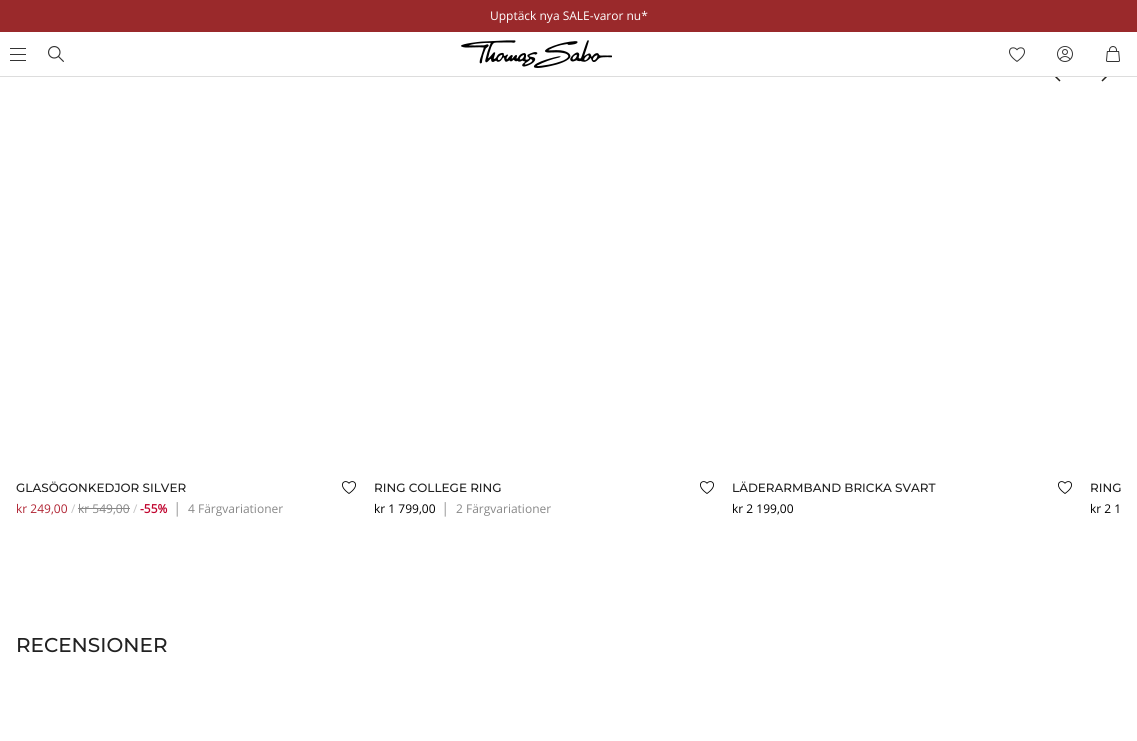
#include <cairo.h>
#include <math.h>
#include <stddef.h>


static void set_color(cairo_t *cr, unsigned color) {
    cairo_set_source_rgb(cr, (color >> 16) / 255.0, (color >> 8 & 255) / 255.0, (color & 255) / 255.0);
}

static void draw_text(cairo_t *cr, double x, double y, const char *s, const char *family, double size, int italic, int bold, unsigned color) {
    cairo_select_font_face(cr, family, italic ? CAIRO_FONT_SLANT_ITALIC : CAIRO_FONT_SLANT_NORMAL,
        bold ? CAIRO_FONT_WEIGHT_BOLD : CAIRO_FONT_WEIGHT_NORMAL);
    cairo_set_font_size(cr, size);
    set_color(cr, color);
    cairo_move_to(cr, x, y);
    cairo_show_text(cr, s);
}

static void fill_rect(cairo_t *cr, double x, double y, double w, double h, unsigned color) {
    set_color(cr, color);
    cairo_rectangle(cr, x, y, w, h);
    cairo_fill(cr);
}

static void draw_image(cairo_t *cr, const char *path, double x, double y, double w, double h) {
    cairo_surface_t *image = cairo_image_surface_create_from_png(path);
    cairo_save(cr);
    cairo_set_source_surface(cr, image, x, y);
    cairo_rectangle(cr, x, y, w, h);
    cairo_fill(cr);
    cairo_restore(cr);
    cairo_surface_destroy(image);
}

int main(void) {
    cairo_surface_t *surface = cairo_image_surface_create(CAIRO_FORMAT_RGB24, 1137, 741);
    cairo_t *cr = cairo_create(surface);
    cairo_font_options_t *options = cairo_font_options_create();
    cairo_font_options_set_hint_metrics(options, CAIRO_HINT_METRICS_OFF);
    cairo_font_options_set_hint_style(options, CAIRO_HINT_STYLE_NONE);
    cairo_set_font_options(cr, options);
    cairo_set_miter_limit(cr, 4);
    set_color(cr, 0xFFFFFF);
    cairo_paint(cr);
    fill_rect(cr, 0, 76, 1137, 1, 0xDDDDDD);
    fill_rect(cr, 0, 0, 1137, 32, 0x9A292B);
    draw_text(cr, 490, 20, "Upptäck nya SALE-varor nu*", "Open Sans", 12, 0, 0, 0xFFFFFF);
    fill_rect(cr, 10, 48, 16, 1, 0x343434);
    fill_rect(cr, 10, 54, 16, 1, 0x343434);
    fill_rect(cr, 10, 60, 16, 1, 0x343434);
    draw_image(cr, "assets/img1.png", 48, 46, 16, 16);
    draw_image(cr, "assets/img2.png", 461, 40, 151, 28);
    draw_image(cr, "assets/img3.png", 1009, 47, 16, 15);
    draw_image(cr, "assets/img4.png", 1057, 46, 16, 16);
    draw_image(cr, "assets/img5.png", 1106, 46, 14, 16);
    draw_image(cr, "assets/img6.png", 1055, 77, 6, 5);
    draw_image(cr, "assets/img7.png", 1101, 77, 6, 5);
    draw_text(cr, 16, 492, "GLASÖGONKEDJOR SILVER", "Montserrat Thin", 12, 0, 0, 0x222222);
    draw_text(cr, 16, 513, "kr 249,00", "Open Sans", 12, 0, 0, 0xB12635);
    draw_text(cr, 71, 513, "/", "Open Sans", 12, 0, 0, 0xC4C4C4);
    draw_text(cr, 78, 513, "kr 549,00", "Open Sans", 12, 0, 0, 0x888888);
    fill_rect(cr, 78, 508, 52, 1, 0x888888);
    draw_text(cr, 133, 513, "/", "Open Sans", 12, 0, 0, 0xC4C4C4);
    draw_text(cr, 140, 513, "-55%", "Open Sans", 12, 0, 1, 0xC1052F);
    draw_text(cr, 174, 513, "│", "Liberation Sans", 12, 0, 0, 0x888888);
    draw_text(cr, 188, 513, "4 Färgvariationer", "Open Sans", 12, 0, 0, 0x888888);
    draw_image(cr, "assets/img8.png", 342, 481, 14, 13);
    draw_text(cr, 374, 492, "RING COLLEGE RING", "Montserrat Thin", 12, 0, 0, 0x222222);
    draw_text(cr, 374, 513, "kr 1 799,00", "Open Sans", 12, 0, 0, 0x000000);
    draw_text(cr, 442, 513, "│", "Liberation Sans", 12, 0, 0, 0x888888);
    draw_text(cr, 456, 513, "2 Färgvariationer", "Open Sans", 12, 0, 0, 0x888888);
    draw_image(cr, "assets/img8.png", 700, 481, 14, 13);
    draw_text(cr, 732, 492, "LÄDERARMBAND BRICKA SVART", "Montserrat Thin", 12, 0, 0, 0x222222);
    draw_text(cr, 732, 513, "kr 2 199,00", "Open Sans", 12, 0, 0, 0x000000);
    draw_image(cr, "assets/img8.png", 1058, 481, 14, 13);
    draw_text(cr, 1090, 492, "RING", "Montserrat Thin", 12, 0, 0, 0x222222);
    draw_text(cr, 1090, 513, "kr 2 1", "Open Sans", 12, 0, 0, 0x000000);
    draw_text(cr, 16, 652, "RECENSIONER", "Montserrat Thin", 20, 0, 0, 0x222222);
    cairo_surface_write_to_png(surface, "output.png");
    cairo_font_options_destroy(options);
    cairo_destroy(cr);
    cairo_surface_destroy(surface);
    return 0;
}
